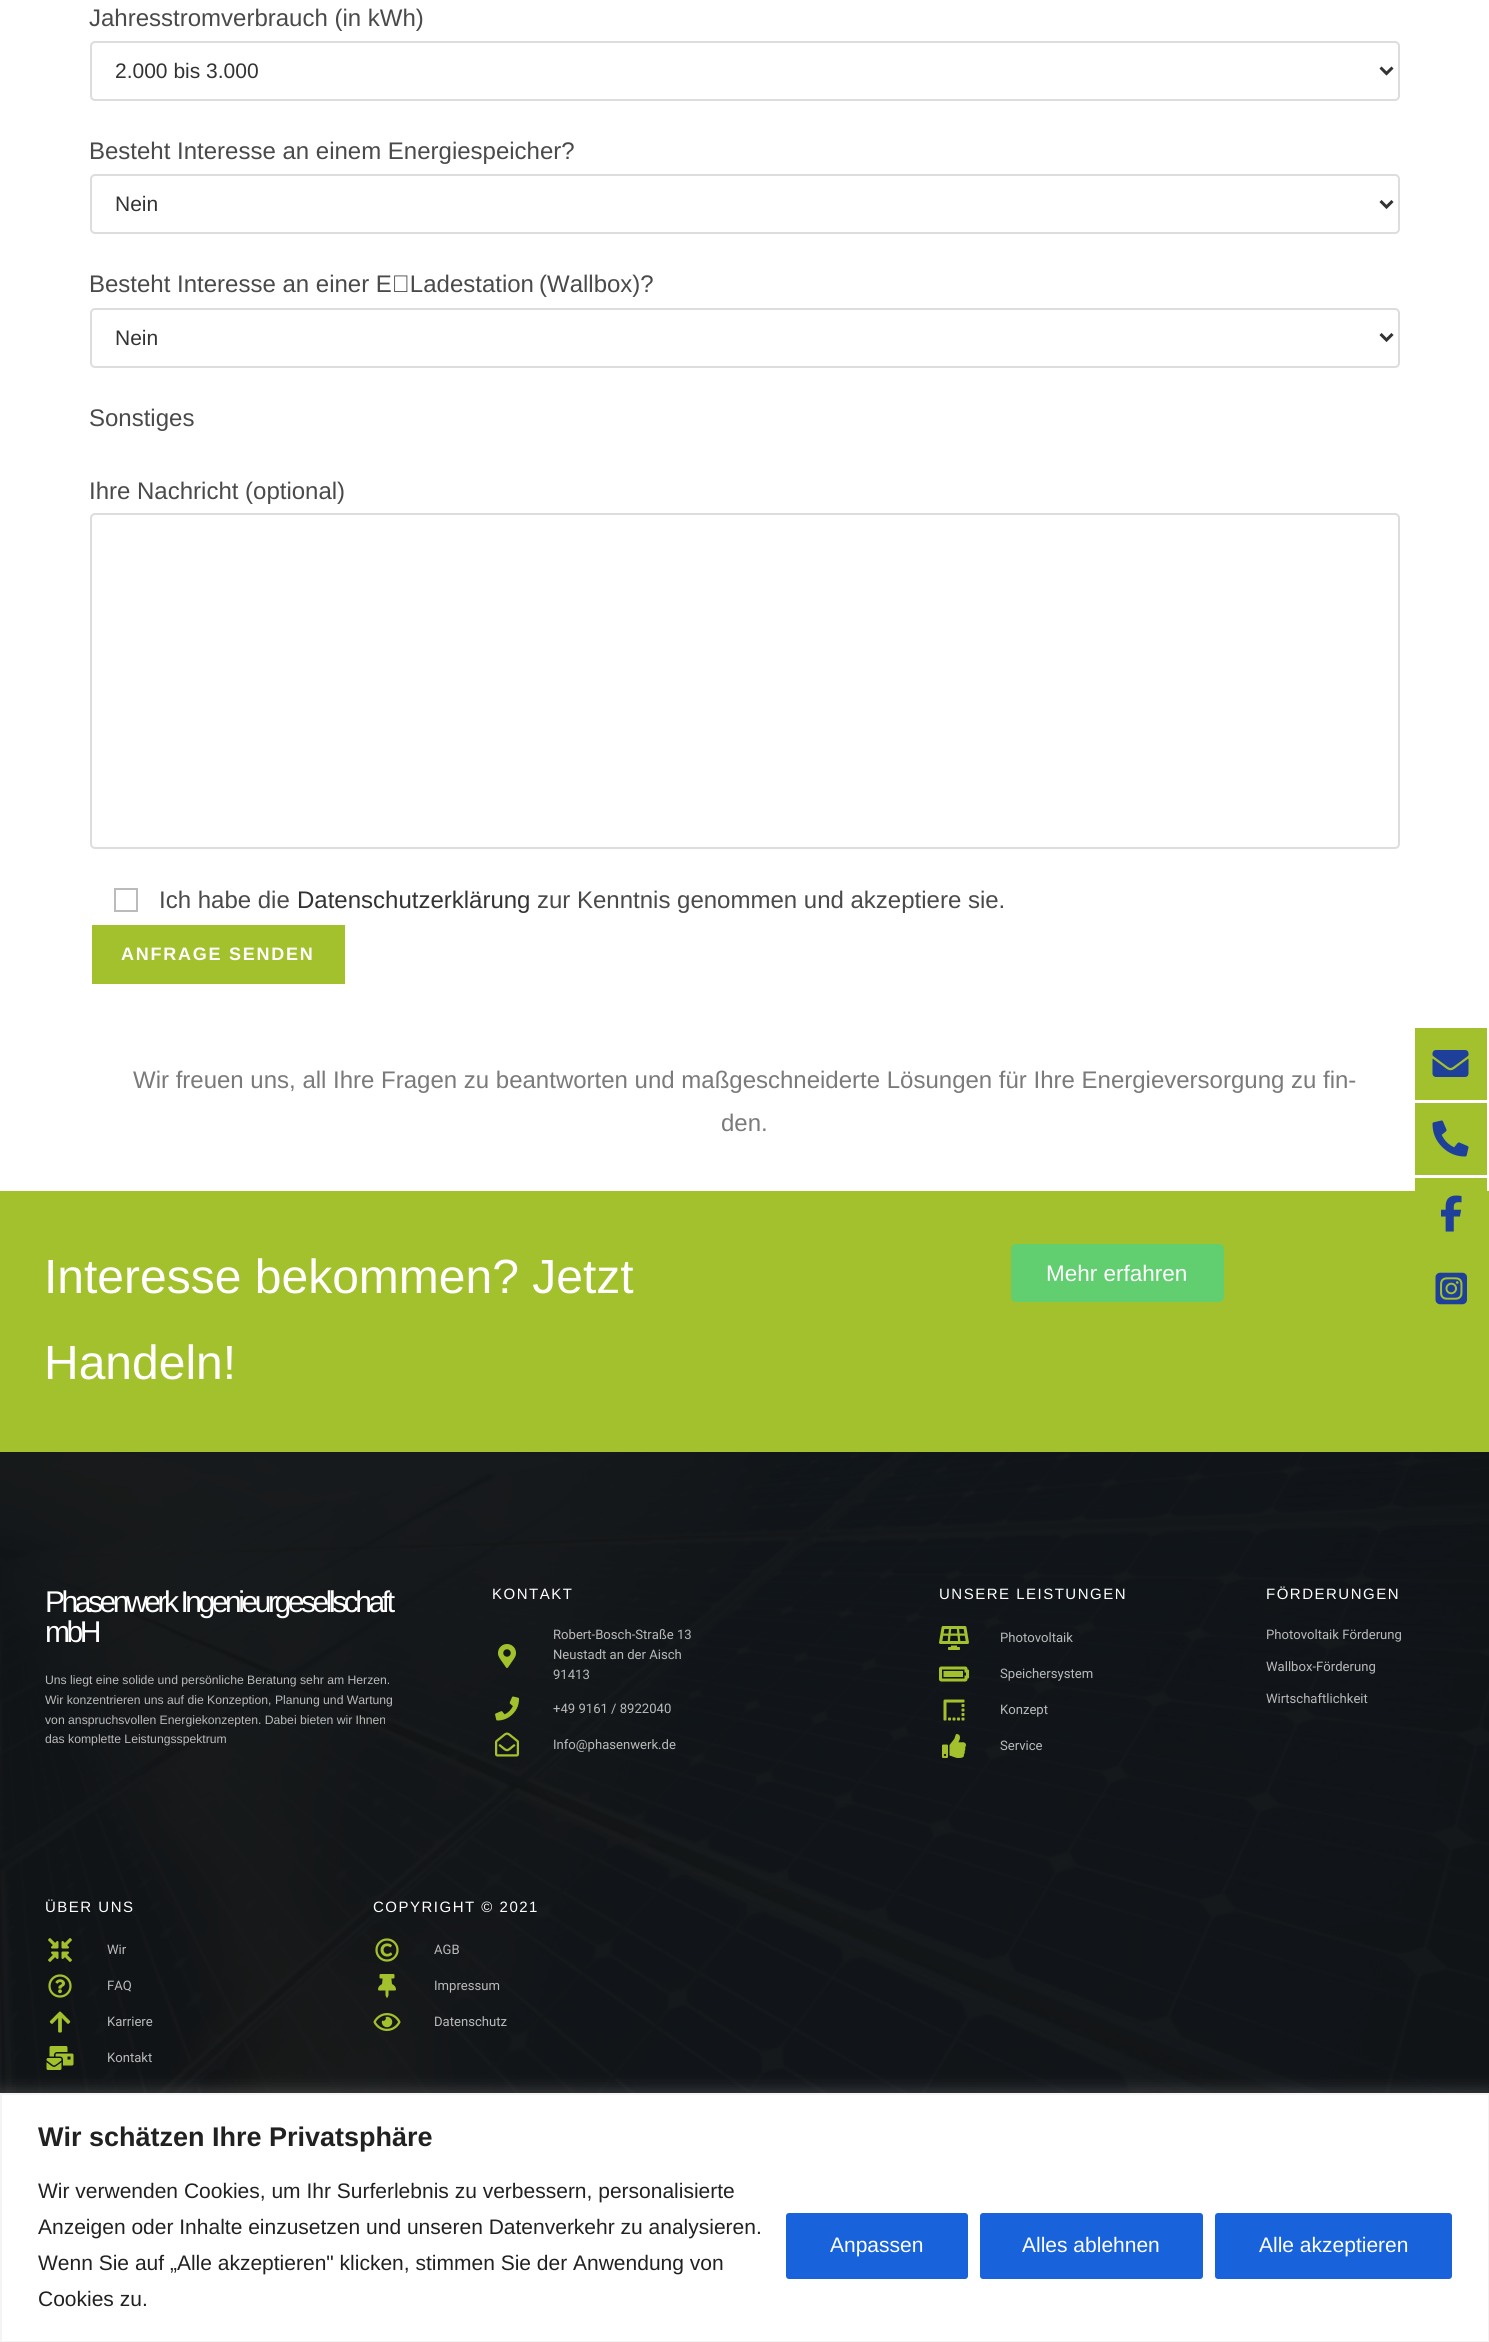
#include <cairo.h>
#include <math.h>
#include <stddef.h>


static void set_color(cairo_t *cr, unsigned color) {
    cairo_set_source_rgb(cr, (color >> 16) / 255.0, (color >> 8 & 255) / 255.0, (color & 255) / 255.0);
}

static void draw_text(cairo_t *cr, double x, double y, const char *s, const char *family, double size, int italic, int bold, unsigned color) {
    cairo_select_font_face(cr, family, italic ? CAIRO_FONT_SLANT_ITALIC : CAIRO_FONT_SLANT_NORMAL,
        bold ? CAIRO_FONT_WEIGHT_BOLD : CAIRO_FONT_WEIGHT_NORMAL);
    cairo_set_font_size(cr, size);
    set_color(cr, color);
    cairo_move_to(cr, x, y);
    cairo_show_text(cr, s);
}

static void draw_spaced(cairo_t *cr, double x, double y, const char *s, double letter, double word) {
    cairo_move_to(cr, x, y);
    while (*s) {
        char ch[5] = {0};
        int n = 0;
        do ch[n++] = *s++; while ((*s & 0xC0) == 0x80);
        cairo_show_text(cr, ch);
        cairo_rel_move_to(cr, letter + word * (*ch == ' '), 0);
    }
}

static void fill_rect(cairo_t *cr, double x, double y, double w, double h, unsigned color) {
    set_color(cr, color);
    cairo_rectangle(cr, x, y, w, h);
    cairo_fill(cr);
}

static void rounded_rect(cairo_t *cr, double x, double y, double w, double h, double r) {
    cairo_new_sub_path(cr);
    cairo_arc(cr, x + w - r, y + h - r, r, 0, M_PI / 2);
    cairo_arc(cr, x + r, y + h - r, r, M_PI / 2, M_PI);
    cairo_arc(cr, x + r, y + r, r, M_PI, 1.5 * M_PI);
    cairo_arc(cr, x + w - r, y + r, r, 1.5 * M_PI, 2 * M_PI);
    cairo_close_path(cr);
}

static void draw_shadow(cairo_t *cr, double x, double y, double w, double h, double r, double blur, double alpha) {
    cairo_push_group_with_content(cr, CAIRO_CONTENT_ALPHA);
    cairo_set_operator(cr, CAIRO_OPERATOR_SOURCE);
    for (int i = 15; i >= -15 && fmin(w, h) + blur * i / 3 > 0; i -= 2) {
        double e = blur * i / 6;
        cairo_set_source_rgba(cr, 0, 0, 0, alpha * erfc((i - 1) / 8.5) / 2);
        rounded_rect(cr, x - e, y - e, w + 2 * e, h + 2 * e, fmax(0, fmin(r + e + blur * .6, fmin(w, h) / 2 + e)));
        cairo_fill(cr);
    }
    cairo_pattern_t *soft = cairo_pop_group(cr);
    cairo_mask(cr, soft);
    cairo_pattern_destroy(soft);
}

static void draw_image(cairo_t *cr, const char *path, double x, double y, double w, double h) {
    cairo_surface_t *image = cairo_image_surface_create_from_png(path);
    cairo_save(cr);
    cairo_set_source_surface(cr, image, x, y);
    cairo_rectangle(cr, x, y, w, h);
    cairo_fill(cr);
    cairo_restore(cr);
    cairo_surface_destroy(image);
}

int main(void) {
    cairo_surface_t *surface = cairo_image_surface_create(CAIRO_FORMAT_RGB24, 1489, 2342);
    cairo_t *cr = cairo_create(surface);
    cairo_font_options_t *options = cairo_font_options_create();
    cairo_font_options_set_hint_metrics(options, CAIRO_HINT_METRICS_OFF);
    cairo_font_options_set_hint_style(options, CAIRO_HINT_STYLE_NONE);
    cairo_set_font_options(cr, options);
    cairo_set_miter_limit(cr, 4);
    set_color(cr, 0xFFFFFF);
    cairo_paint(cr);
    draw_text(cr, 89, 26, "Jahresstromverbrauch (in kWh)", "Liberation Sans", 24, 0, 0, 0x4A4A4A);
    rounded_rect(cr, 91, 42, 1308, 58, 4);
    set_color(cr, 0xDDDDDD);
    cairo_stroke(cr);
    cairo_new_path(cr);
    cairo_move_to(cr, 1380.5, 67.5);
    cairo_line_to(cr, 1386.5, 73.5);
    cairo_line_to(cr, 1392.5, 67.5);
    set_color(cr, 0x333333);
    cairo_set_line_width(cr, 3);
    cairo_stroke(cr);
    draw_text(cr, 115, 78, "2.000 bis 3.000", "Liberation Sans", 21, 0, 0, 0x333333);
    draw_text(cr, 89, 159, "Besteht Interesse an einem Energiespeicher?", "Liberation Sans", 24, 0, 0, 0x4A4A4A);
    rounded_rect(cr, 91, 175, 1308, 58, 4);
    set_color(cr, 0xDDDDDD);
    cairo_set_line_width(cr, 2);
    cairo_stroke(cr);
    cairo_new_path(cr);
    cairo_move_to(cr, 1380.5, 201);
    cairo_line_to(cr, 1386.5, 207);
    cairo_line_to(cr, 1392.5, 201);
    set_color(cr, 0x333333);
    cairo_set_line_width(cr, 3);
    cairo_stroke(cr);
    draw_text(cr, 115, 211, "Nein", "Liberation Sans", 21, 0, 0, 0x333333);
    draw_text(cr, 89, 292, "Besteht Interesse an einer E‑Ladestation", "Liberation Sans", 24, 0, 0, 0x4A4A4A);
    draw_text(cr, 539, 292, "(Wallbox)?", "Liberation Sans", 24, 0, 0, 0x4A4A4A);
    rounded_rect(cr, 91, 309, 1308, 58, 4);
    set_color(cr, 0xDDDDDD);
    cairo_set_line_width(cr, 2);
    cairo_stroke(cr);
    cairo_new_path(cr);
    cairo_move_to(cr, 1380.5, 334);
    cairo_line_to(cr, 1386.5, 340);
    cairo_line_to(cr, 1392.5, 334);
    set_color(cr, 0x333333);
    cairo_set_line_width(cr, 3);
    cairo_stroke(cr);
    draw_text(cr, 115, 345, "Nein", "Liberation Sans", 21, 0, 0, 0x333333);
    draw_text(cr, 89, 426, "Sonstiges", "Liberation Sans", 24, 0, 0, 0x4A4A4A);
    draw_text(cr, 89, 499, "Ihre Nachricht (optional)", "Liberation Sans", 24, 0, 0, 0x4A4A4A);
    rounded_rect(cr, 91, 514, 1308, 334, 4);
    set_color(cr, 0xDDDDDD);
    cairo_set_line_width(cr, 2);
    cairo_stroke(cr);
    cairo_rectangle(cr, 115, 889, 22, 22);
    set_color(cr, 0xBBBBBB);
    cairo_stroke(cr);
    draw_text(cr, 159, 908, "Ich habe die", "Liberation Sans", 24, 0, 0, 0x4A4A4A);
    draw_text(cr, 297, 908, "Datenschutzerklärung", "Liberation Sans", 24, 0, 0, 0x333333);
    draw_text(cr, 537, 908, "zur Kenntnis genommen und akzeptiere sie.", "Liberation Sans", 24, 0, 0, 0x4A4A4A);
    fill_rect(cr, 92, 925, 253, 59, 0xA3C02D);
    cairo_select_font_face(cr, "Liberation Sans", CAIRO_FONT_SLANT_NORMAL, CAIRO_FONT_WEIGHT_BOLD);
    cairo_set_font_size(cr, 18);
    set_color(cr, 0xFFFFFF);
    draw_spaced(cr, 121, 960, "ANFRAGE SENDEN", 1.75, 0);
    draw_text(cr, 133, 1088, "Wir freuen uns, all Ihre Fragen zu beantworten und maßgeschneiderte Lösungen für Ihre Energieversorgung zu fin-", "Liberation Sans", 24, 0, 0, 0x7A7A7A);
    draw_text(cr, 721, 1131, "den.", "Liberation Sans", 24, 0, 0, 0x7A7A7A);
    fill_rect(cr, 0, 1191, 1489, 261, 0xA3C02D);
    draw_text(cr, 44, 1293, "Interesse bekommen? Jetzt", "Liberation Sans", 48, 0, 0, 0xFFFFFF);
    draw_text(cr, 44, 1379, "Handeln!", "Liberation Sans", 48, 0, 0, 0xFFFFFF);
    set_color(cr, 0x61CE70);
    rounded_rect(cr, 1011, 1244, 213, 58, 5);
    cairo_fill(cr);
    draw_text(cr, 1046, 1281, "Mehr erfahren", "Liberation Sans", 22.5, 0, 0, 0xFFFFFF);
    draw_image(cr, "assets/img1.png", 0, 1452, 1489, 641);
    cairo_set_font_size(cr, 30);
    draw_spaced(cr, 45, 1612, "Phasenwerk Ingenieurgesellschaft", -3.45, 0);
    draw_spaced(cr, 45, 1642, "mbH", -3.45, 0);
    draw_text(cr, 45, 1684, "Uns liegt eine solide und persönliche Beratung sehr am Herzen.", "Liberation Sans", 12.2, 0, 0, 0xB9BABA);
    draw_text(cr, 45, 1704, "Wir konzentrieren uns auf die Konzeption, Planung und Wartung", "Liberation Sans", 12.2, 0, 0, 0xB9BABA);
    draw_text(cr, 45, 1724, "von anspruchsvollen Energiekonzepten. Dabei bieten wir Ihnen", "Liberation Sans", 12.2, 0, 0, 0xB9BABA);
    draw_text(cr, 45, 1743, "das komplette Leistungsspektrum", "Liberation Sans", 12.2, 0, 0, 0xB9BABA);
    cairo_set_font_size(cr, 15);
    set_color(cr, 0xFFFFFF);
    draw_spaced(cr, 492, 1599, "KONTAKT", 1.5, 0);
    draw_image(cr, "assets/img2.png", 498, 1644, 18, 24);
    draw_text(cr, 553, 1639, "Robert-Bosch-Straße 13", "Roboto", 13.1, 0, 0, 0xB9BABA);
    draw_text(cr, 553, 1659, "Neustadt an der Aisch", "Roboto", 13.1, 0, 0, 0xB9BABA);
    draw_text(cr, 553, 1679, "91413", "Roboto", 13.1, 0, 0, 0xB9BABA);
    draw_image(cr, "assets/img3.png", 495, 1696, 24, 25);
    draw_text(cr, 553, 1713, "+49 9161 / 8922040", "Roboto", 13.1, 0, 0, 0xB9BABA);
    draw_image(cr, "assets/img4.png", 495, 1732, 24, 25);
    draw_text(cr, 553, 1749, "Info@phasenwerk.de", "Roboto", 13.1, 0, 0, 0xB9BABA);
    cairo_select_font_face(cr, "Liberation Sans", CAIRO_FONT_SLANT_NORMAL, CAIRO_FONT_WEIGHT_NORMAL);
    cairo_set_font_size(cr, 15);
    set_color(cr, 0xFFFFFF);
    draw_spaced(cr, 939, 1599, "UNSERE LEISTUNGEN", 1.5, 0);
    draw_image(cr, "assets/img5.png", 939, 1626, 30, 24);
    draw_text(cr, 1000, 1642, "Photovoltaik", "Roboto", 13.1, 0, 0, 0xB9BABA);
    draw_image(cr, "assets/img6.png", 939, 1666, 30, 16);
    draw_text(cr, 1000, 1678, "Speichersystem", "Roboto", 13.1, 0, 0, 0xB9BABA);
    draw_image(cr, "assets/img7.png", 943, 1699, 22, 22);
    draw_text(cr, 1000, 1714, "Konzept", "Roboto", 13.1, 0, 0, 0xB9BABA);
    draw_image(cr, "assets/img8.png", 942, 1734, 24, 24);
    draw_text(cr, 1000, 1750, "Service", "Roboto", 13.1, 0, 0, 0xB9BABA);
    cairo_select_font_face(cr, "Liberation Sans", CAIRO_FONT_SLANT_NORMAL, CAIRO_FONT_WEIGHT_NORMAL);
    cairo_set_font_size(cr, 15);
    set_color(cr, 0xFFFFFF);
    draw_spaced(cr, 1266, 1599, "FÖRDERUNGEN", 1.5, 0);
    draw_text(cr, 1266, 1639, "Photovoltaik Förderung", "Roboto", 13.1, 0, 0, 0xB9BABA);
    draw_text(cr, 1266, 1671, "Wallbox-Förderung", "Roboto", 13.1, 0, 0, 0xB9BABA);
    draw_text(cr, 1266, 1703, "Wirtschaftlichkeit", "Roboto", 13.1, 0, 0, 0xB9BABA);
    cairo_select_font_face(cr, "Liberation Sans", CAIRO_FONT_SLANT_NORMAL, CAIRO_FONT_WEIGHT_NORMAL);
    cairo_set_font_size(cr, 15);
    set_color(cr, 0xFFFFFF);
    draw_spaced(cr, 45, 1912, "ÜBER UNS", 1.5, 0);
    draw_image(cr, "assets/img9.png", 48, 1938, 24, 24);
    draw_text(cr, 107, 1954, "Wir", "Roboto", 13.1, 0, 0, 0xB9BABA);
    draw_image(cr, "assets/img10.png", 48, 1974, 24, 24);
    draw_text(cr, 107, 1990, "FAQ", "Roboto", 13.1, 0, 0, 0xB9BABA);
    draw_image(cr, "assets/img11.png", 49, 2011, 22, 22);
    draw_text(cr, 107, 2026, "Karriere", "Roboto", 13.1, 0, 0, 0xB9BABA);
    draw_image(cr, "assets/img12.png", 46, 2046, 28, 24);
    draw_text(cr, 107, 2062, "Kontakt", "Roboto", 13.1, 0, 0, 0xB9BABA);
    cairo_select_font_face(cr, "Liberation Sans", CAIRO_FONT_SLANT_NORMAL, CAIRO_FONT_WEIGHT_NORMAL);
    cairo_set_font_size(cr, 15);
    set_color(cr, 0xFFFFFF);
    draw_spaced(cr, 373, 1912, "COPYRIGHT © 2021", 1.5, 0);
    draw_image(cr, "assets/img13.png", 375, 1938, 24, 24);
    draw_text(cr, 434, 1954, "AGB", "Roboto", 13.1, 0, 0, 0xB9BABA);
    draw_image(cr, "assets/img14.png", 378, 1974, 18, 24);
    draw_text(cr, 434, 1990, "Impressum", "Roboto", 13.1, 0, 0, 0xB9BABA);
    draw_image(cr, "assets/img15.png", 373, 2013, 28, 18);
    draw_text(cr, 434, 2026, "Datenschutz", "Roboto", 13.1, 0, 0, 0xB9BABA);
    fill_rect(cr, 1415, 1028, 72, 72, 0xA3C02D);
    draw_image(cr, "assets/img16.png", 1432, 1050, 37, 27);
    fill_rect(cr, 1415, 1103, 72, 72, 0xA3C02D);
    draw_image(cr, "assets/img17.png", 1432, 1120, 37, 37);
    fill_rect(cr, 1415, 1178, 72, 13, 0xA3C02D);
    draw_image(cr, "assets/img18.png", 1441, 1195, 21, 37);
    draw_image(cr, "assets/img19.png", 1435, 1272, 32, 33);
    set_color(cr, 0xACABAB);
    draw_shadow(cr, 0, 2091, 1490, 251, 0, 7.5, 0.3);
    set_color(cr, 0xFFFFFF);
    cairo_rectangle(cr, 1, 2094, 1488, 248);
    cairo_fill_preserve(cr);
    set_color(cr, 0xF4F4F4);
    cairo_stroke(cr);
    draw_text(cr, 38, 2146, "Wir schätzen Ihre Privatsphäre", "Liberation Sans", 27, 0, 1, 0x212121);
    draw_text(cr, 38, 2198, "Wir verwenden Cookies, um Ihr Surferlebnis zu verbessern, personalisierte", "Liberation Sans", 21, 0, 0, 0x212121);
    draw_text(cr, 38, 2234, "Anzeigen oder Inhalte einzusetzen und unseren Datenverkehr zu analysieren.", "Liberation Sans", 21, 0, 0, 0x212121);
    draw_text(cr, 38, 2270, "Wenn Sie auf „Alle akzeptieren\" klicken, stimmen Sie der Anwendung von", "Liberation Sans", 21, 0, 0, 0x212121);
    draw_text(cr, 38, 2306, "Cookies zu.", "Liberation Sans", 21, 0, 0, 0x212121);
    set_color(cr, 0x1863DC);
    rounded_rect(cr, 787.5, 2214.5, 179, 63, 1.5);
    cairo_fill_preserve(cr);
    cairo_set_line_width(cr, 3);
    cairo_stroke(cr);
    draw_text(cr, 830, 2252, "Anpassen", "Liberation Sans", 21, 0, 0, 0xFFFFFF);
    set_color(cr, 0x1863DC);
    rounded_rect(cr, 981.5, 2214.5, 220, 63, 1.5);
    cairo_fill_preserve(cr);
    cairo_stroke(cr);
    draw_text(cr, 1022, 2252, "Alles ablehnen", "Liberation Sans", 21, 0, 0, 0xFFFFFF);
    set_color(cr, 0x1863DC);
    rounded_rect(cr, 1216.5, 2214.5, 234, 63, 1.5);
    cairo_fill_preserve(cr);
    cairo_stroke(cr);
    draw_text(cr, 1259, 2252, "Alle akzeptieren", "Liberation Sans", 21, 0, 0, 0xFFFFFF);
    cairo_surface_write_to_png(surface, "output.png");
    cairo_font_options_destroy(options);
    cairo_destroy(cr);
    cairo_surface_destroy(surface);
    return 0;
}
